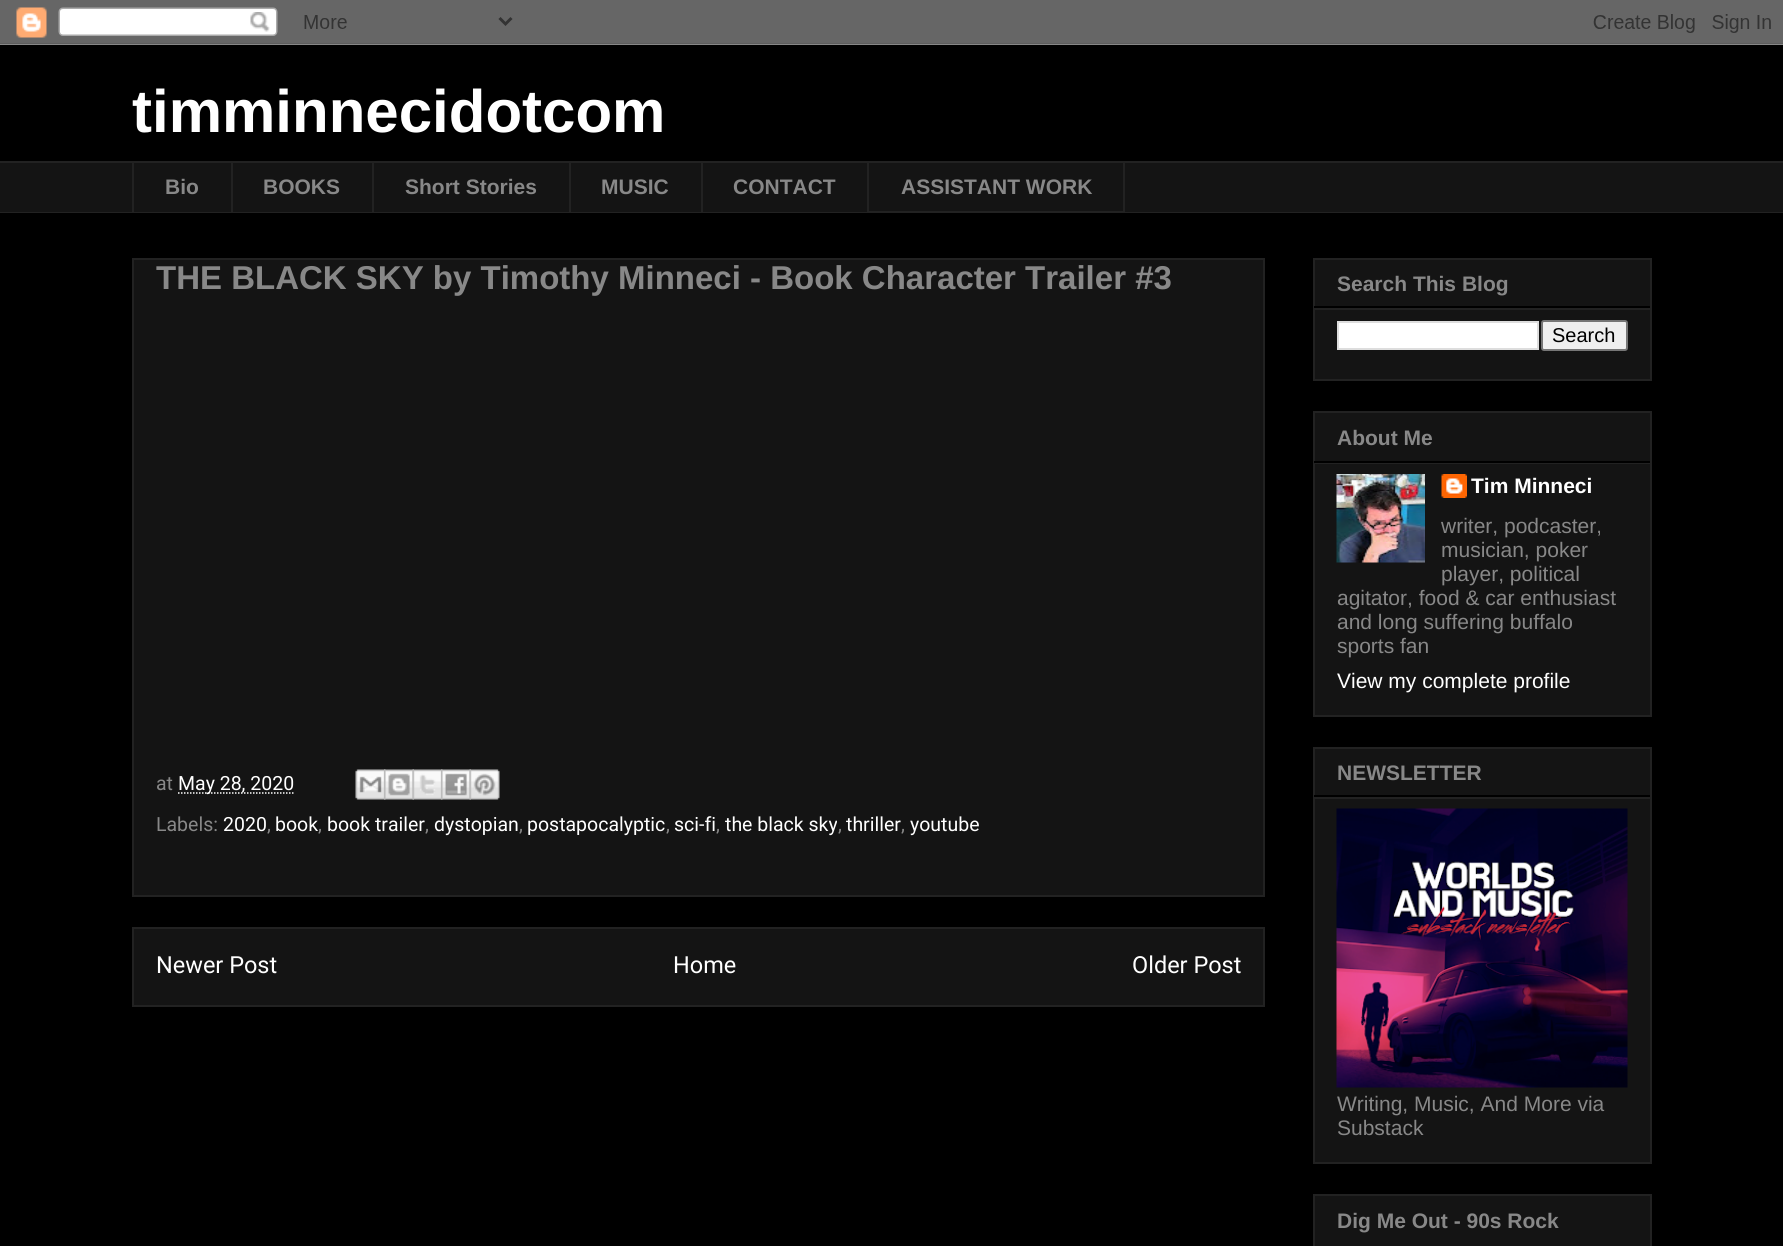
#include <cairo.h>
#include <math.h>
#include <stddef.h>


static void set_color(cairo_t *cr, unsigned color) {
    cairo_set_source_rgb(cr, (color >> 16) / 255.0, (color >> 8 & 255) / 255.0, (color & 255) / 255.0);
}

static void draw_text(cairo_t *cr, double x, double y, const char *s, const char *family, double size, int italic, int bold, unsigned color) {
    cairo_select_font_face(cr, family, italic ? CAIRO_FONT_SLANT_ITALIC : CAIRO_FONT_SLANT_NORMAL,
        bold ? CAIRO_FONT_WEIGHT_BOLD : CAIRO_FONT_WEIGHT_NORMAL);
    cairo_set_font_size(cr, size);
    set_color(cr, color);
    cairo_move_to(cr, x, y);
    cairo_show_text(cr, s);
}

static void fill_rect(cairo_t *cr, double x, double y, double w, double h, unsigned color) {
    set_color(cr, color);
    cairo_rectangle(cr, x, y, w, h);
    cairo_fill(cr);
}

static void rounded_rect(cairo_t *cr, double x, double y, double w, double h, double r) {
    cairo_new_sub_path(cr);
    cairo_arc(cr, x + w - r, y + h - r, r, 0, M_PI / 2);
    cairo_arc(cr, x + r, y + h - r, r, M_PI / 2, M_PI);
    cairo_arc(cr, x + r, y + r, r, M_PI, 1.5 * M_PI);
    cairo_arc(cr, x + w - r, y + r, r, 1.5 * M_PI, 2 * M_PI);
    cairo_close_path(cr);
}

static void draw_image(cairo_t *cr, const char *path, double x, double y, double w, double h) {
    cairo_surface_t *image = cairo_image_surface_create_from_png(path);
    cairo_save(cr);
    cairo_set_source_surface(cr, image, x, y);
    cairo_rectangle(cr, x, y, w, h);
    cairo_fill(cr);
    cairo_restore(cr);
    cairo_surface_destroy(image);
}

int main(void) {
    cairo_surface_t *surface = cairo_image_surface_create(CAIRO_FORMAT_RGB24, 1783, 1246);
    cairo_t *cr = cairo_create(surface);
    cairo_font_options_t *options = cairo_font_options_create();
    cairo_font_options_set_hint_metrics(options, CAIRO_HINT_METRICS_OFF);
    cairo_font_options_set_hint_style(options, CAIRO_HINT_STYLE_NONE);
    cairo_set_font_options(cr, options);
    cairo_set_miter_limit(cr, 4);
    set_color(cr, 0x000000);
    cairo_paint(cr);
    draw_image(cr, "assets/img1.png", 0, 0, 1783, 45);
    draw_text(cr, 132, 132, "timminnecidotcom", "Liberation Sans", 60, 0, 1, 0xFFFFFF);
    fill_rect(cr, 0, 163, 1783, 49, 0x141414);
    fill_rect(cr, 0, 161, 1783, 2, 0x222222);
    fill_rect(cr, 132, 161, 2, 52, 0x222222);
    draw_text(cr, 165, 194, "Bio", "Liberation Sans", 21, 0, 1, 0x888888);
    fill_rect(cr, 231, 161, 2, 52, 0x222222);
    draw_text(cr, 263, 194, "BOOKS", "Liberation Sans", 21, 0, 1, 0x888888);
    fill_rect(cr, 372, 161, 2, 52, 0x222222);
    draw_text(cr, 405, 194, "Short Stories", "Liberation Sans", 21, 0, 1, 0x888888);
    fill_rect(cr, 569, 161, 2, 52, 0x222222);
    draw_text(cr, 601, 194, "MUSIC", "Liberation Sans", 21, 0, 1, 0x888888);
    fill_rect(cr, 701, 161, 2, 52, 0x222222);
    draw_text(cr, 733, 194, "CONTACT", "Liberation Sans", 21, 0, 1, 0x888888);
    cairo_rectangle(cr, 868, 162, 256, 50);
    set_color(cr, 0x222222);
    cairo_stroke(cr);
    draw_text(cr, 901, 194, "ASSISTANT WORK", "Liberation Sans", 21, 0, 1, 0x888888);
    fill_rect(cr, 0, 212, 1783, 1, 0x222222);
    set_color(cr, 0x141414);
    cairo_rectangle(cr, 133, 259, 1131, 637);
    cairo_fill_preserve(cr);
    set_color(cr, 0x222222);
    cairo_stroke(cr);
    draw_text(cr, 156, 289, "THE BLACK SKY by Timothy Minneci - Book Character Trailer #3", "Liberation Sans", 33, 0, 1, 0x888888);
    draw_text(cr, 156, 790, "at", "Roboto", 19.5, 0, 0, 0x888888);
    cairo_new_path(cr);
    cairo_move_to(cr, 178, 793);
    cairo_line_to(cr, 294, 793);
    set_color(cr, 0xFFFFFF);
    cairo_set_line_width(cr, 1.5);
    cairo_set_dash(cr, (double[]){1.5, 1.5}, 2, 0);
    cairo_stroke(cr);
    draw_text(cr, 178, 790, "May 28, 2020", "Roboto", 19.5, 0, 0, 0xFFFFFF);
    draw_image(cr, "assets/img2.png", 355, 769, 31, 31);
    draw_image(cr, "assets/img3.png", 384, 769, 30, 31);
    draw_image(cr, "assets/img4.png", 412, 769, 31, 31);
    draw_image(cr, "assets/img5.png", 441, 769, 30, 31);
    draw_image(cr, "assets/img6.png", 469, 769, 31, 31);
    draw_text(cr, 156, 831, "Labels:", "Roboto", 19.5, 0, 0, 0x888888);
    draw_text(cr, 223, 831, "2020", "Roboto", 19.5, 0, 0, 0xFFFFFF);
    draw_text(cr, 267, 831, ",", "Roboto", 19.5, 0, 0, 0x888888);
    draw_text(cr, 275, 831, "book", "Roboto", 19.5, 0, 0, 0xFFFFFF);
    draw_text(cr, 318, 831, ",", "Roboto", 19.5, 0, 0, 0x888888);
    draw_text(cr, 327, 831, "book trailer", "Roboto", 19.5, 0, 0, 0xFFFFFF);
    draw_text(cr, 425, 831, ",", "Roboto", 19.5, 0, 0, 0x888888);
    draw_text(cr, 434, 831, "dystopian", "Roboto", 19.5, 0, 0, 0xFFFFFF);
    draw_text(cr, 519, 831, ",", "Roboto", 19.5, 0, 0, 0x888888);
    draw_text(cr, 527, 831, "postapocalyptic", "Roboto", 19.5, 0, 0, 0xFFFFFF);
    draw_text(cr, 666, 831, ",", "Roboto", 19.5, 0, 0, 0x888888);
    draw_text(cr, 674, 831, "sci-fi", "Roboto", 19.5, 0, 0, 0xFFFFFF);
    draw_text(cr, 716, 831, ",", "Roboto", 19.5, 0, 0, 0x888888);
    draw_text(cr, 725, 831, "the black sky", "Roboto", 19.5, 0, 0, 0xFFFFFF);
    draw_text(cr, 838, 831, ",", "Roboto", 19.5, 0, 0, 0x888888);
    draw_text(cr, 846, 831, "thriller", "Roboto", 19.5, 0, 0, 0xFFFFFF);
    draw_text(cr, 901, 831, ",", "Roboto", 19.5, 0, 0, 0x888888);
    draw_text(cr, 910, 831, "youtube", "Roboto", 19.5, 0, 0, 0xFFFFFF);
    set_color(cr, 0x141414);
    cairo_rectangle(cr, 133, 928, 1131, 78);
    cairo_fill_preserve(cr);
    set_color(cr, 0x222222);
    cairo_set_line_width(cr, 2);
    cairo_set_dash(cr, NULL, 0, 0);
    cairo_stroke(cr);
    draw_text(cr, 156, 973, "Newer Post", "Roboto", 23.5, 0, 0, 0xFFFFFF);
    draw_text(cr, 673, 973, "Home", "Roboto", 23.5, 0, 0, 0xFFFFFF);
    draw_text(cr, 1132, 973, "Older Post", "Roboto", 23.5, 0, 0, 0xFFFFFF);
    set_color(cr, 0x141414);
    cairo_rectangle(cr, 1314, 259, 337, 121);
    cairo_fill_preserve(cr);
    set_color(cr, 0x222222);
    cairo_stroke(cr);
    fill_rect(cr, 1314, 306, 336, 2, 0x000000);
    draw_text(cr, 1337, 291, "Search This Blog", "Liberation Sans", 21, 0, 1, 0x888888);
    fill_rect(cr, 1314, 308, 336, 2, 0x222222);
    set_color(cr, 0xFFFFFF);
    cairo_rectangle(cr, 1338, 322, 200, 27);
    cairo_fill_preserve(cr);
    set_color(cr, 0xDDDDDD);
    cairo_stroke(cr);
    set_color(cr, 0xEFEFEF);
    rounded_rect(cr, 1542, 321, 85, 29, 2);
    cairo_fill_preserve(cr);
    set_color(cr, 0x767676);
    cairo_stroke(cr);
    draw_text(cr, 1552, 342, "Search", "Liberation Sans", 20, 0, 0, 0x000000);
    set_color(cr, 0x141414);
    cairo_rectangle(cr, 1314, 412, 337, 304);
    cairo_fill_preserve(cr);
    set_color(cr, 0x222222);
    cairo_stroke(cr);
    fill_rect(cr, 1314, 461, 336, 2, 0x000000);
    draw_text(cr, 1337, 445, "About Me", "Liberation Sans", 21, 0, 1, 0x888888);
    fill_rect(cr, 1314, 463, 336, 1, 0x222222);
    draw_image(cr, "assets/img7.png", 1336, 474, 89, 89);
    draw_image(cr, "assets/img8.png", 1441, 474, 26, 24);
    draw_text(cr, 1471, 493, "Tim Minneci", "Liberation Sans", 21, 0, 1, 0xFFFFFF);
    draw_text(cr, 1441, 533, "writer, podcaster,", "Liberation Sans", 21, 0, 0, 0x888888);
    draw_text(cr, 1441, 557, "musician, poker", "Liberation Sans", 21, 0, 0, 0x888888);
    draw_text(cr, 1441, 581, "player, political", "Liberation Sans", 21, 0, 0, 0x888888);
    draw_text(cr, 1337, 605, "agitator, food & car enthusiast", "Liberation Sans", 21, 0, 0, 0x888888);
    draw_text(cr, 1337, 629, "and long suffering buffalo", "Liberation Sans", 21, 0, 0, 0x888888);
    draw_text(cr, 1337, 653, "sports fan", "Liberation Sans", 21, 0, 0, 0x888888);
    draw_text(cr, 1337, 688, "View my complete profile", "Liberation Sans", 21, 0, 0, 0xFFFFFF);
    set_color(cr, 0x141414);
    cairo_rectangle(cr, 1314, 748, 337, 415);
    cairo_fill_preserve(cr);
    set_color(cr, 0x222222);
    cairo_stroke(cr);
    fill_rect(cr, 1314, 795, 336, 2, 0x000000);
    draw_text(cr, 1337, 780, "NEWSLETTER", "Liberation Sans", 21, 0, 1, 0x888888);
    fill_rect(cr, 1314, 797, 336, 2, 0x222222);
    draw_image(cr, "assets/img9.png", 1336, 808, 292, 280);
    draw_text(cr, 1337, 1111, "Writing, Music, And More via", "Liberation Sans", 21, 0, 0, 0x888888);
    draw_text(cr, 1337, 1135, "Substack", "Liberation Sans", 21, 0, 0, 0x888888);
    set_color(cr, 0x141414);
    cairo_rectangle(cr, 1314, 1195, 337, 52);
    cairo_fill_preserve(cr);
    set_color(cr, 0x222222);
    cairo_stroke(cr);
    draw_text(cr, 1337, 1228, "Dig Me Out - 90s Rock", "Liberation Sans", 21, 0, 1, 0x888888);
    cairo_surface_write_to_png(surface, "output.png");
    cairo_font_options_destroy(options);
    cairo_destroy(cr);
    cairo_surface_destroy(surface);
    return 0;
}
